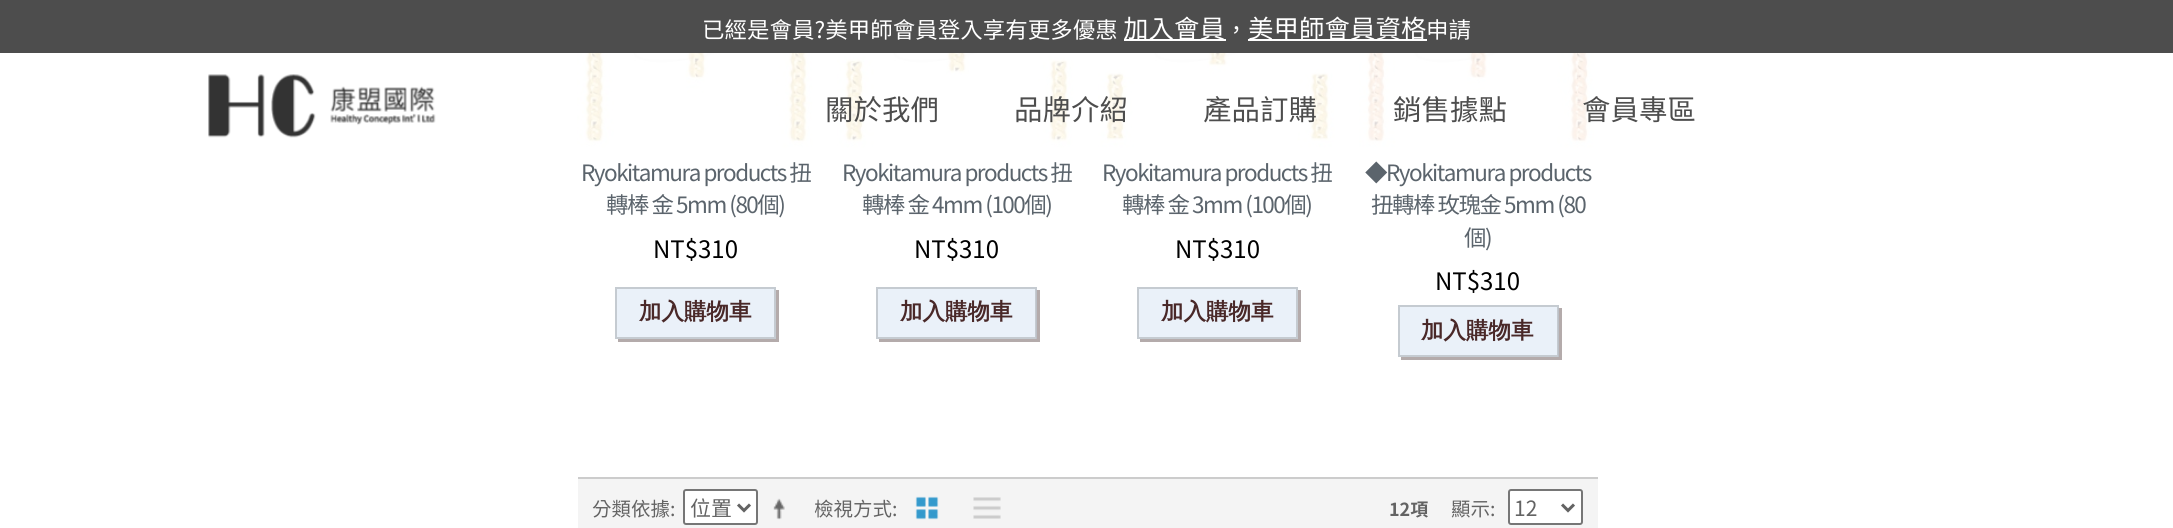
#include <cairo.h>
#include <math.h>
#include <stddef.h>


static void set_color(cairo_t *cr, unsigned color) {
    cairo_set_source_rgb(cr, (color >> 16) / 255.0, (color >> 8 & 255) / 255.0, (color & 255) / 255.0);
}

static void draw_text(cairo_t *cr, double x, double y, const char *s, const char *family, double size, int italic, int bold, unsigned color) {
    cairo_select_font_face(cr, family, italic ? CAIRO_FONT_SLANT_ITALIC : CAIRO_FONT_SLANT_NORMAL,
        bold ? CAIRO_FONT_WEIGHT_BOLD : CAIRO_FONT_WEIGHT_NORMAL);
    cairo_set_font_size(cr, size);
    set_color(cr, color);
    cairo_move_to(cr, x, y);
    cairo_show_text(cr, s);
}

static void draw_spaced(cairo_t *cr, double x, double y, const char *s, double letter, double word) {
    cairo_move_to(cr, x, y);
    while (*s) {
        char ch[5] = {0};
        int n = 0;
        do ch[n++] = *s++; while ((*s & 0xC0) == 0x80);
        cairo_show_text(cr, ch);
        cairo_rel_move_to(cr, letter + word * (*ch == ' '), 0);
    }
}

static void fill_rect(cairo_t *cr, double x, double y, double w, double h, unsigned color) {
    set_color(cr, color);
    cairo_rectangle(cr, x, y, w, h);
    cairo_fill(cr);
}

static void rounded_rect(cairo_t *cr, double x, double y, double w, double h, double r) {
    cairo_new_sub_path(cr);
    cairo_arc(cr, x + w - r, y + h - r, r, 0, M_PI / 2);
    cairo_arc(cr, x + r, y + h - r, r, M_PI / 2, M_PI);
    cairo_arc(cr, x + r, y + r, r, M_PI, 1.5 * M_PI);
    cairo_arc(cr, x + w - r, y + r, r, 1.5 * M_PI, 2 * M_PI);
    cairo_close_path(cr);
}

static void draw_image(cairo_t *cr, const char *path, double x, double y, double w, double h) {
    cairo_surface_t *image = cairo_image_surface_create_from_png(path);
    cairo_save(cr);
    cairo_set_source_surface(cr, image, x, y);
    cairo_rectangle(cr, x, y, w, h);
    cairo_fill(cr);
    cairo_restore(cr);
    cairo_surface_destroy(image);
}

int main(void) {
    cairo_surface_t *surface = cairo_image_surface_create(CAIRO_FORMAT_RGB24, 2173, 528);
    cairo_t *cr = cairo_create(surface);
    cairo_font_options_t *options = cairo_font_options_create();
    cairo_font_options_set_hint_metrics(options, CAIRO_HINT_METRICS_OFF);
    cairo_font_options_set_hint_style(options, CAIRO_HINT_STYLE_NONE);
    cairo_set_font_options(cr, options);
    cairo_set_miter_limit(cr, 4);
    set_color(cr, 0xFFFFFF);
    cairo_paint(cr);
    fill_rect(cr, 0, 0, 2173, 53, 0x4D4D4D);
    draw_text(cr, 702, 38, "已經是會員?美甲師會員登入享有更多優惠", "Noto Sans TC", 22.5, 0, 0, 0xFFFFFF);
    fill_rect(cr, 1124, 39, 102, 2, 0xFFFFFF);
    draw_text(cr, 1123, 38, "加入會員", "Noto Sans TC", 25.5, 0, 0, 0xFFFFFF);
    draw_text(cr, 1225, 38, "，", "Noto Sans TC", 22.5, 0, 0, 0xFFFFFF);
    fill_rect(cr, 1248, 39, 179, 2, 0xFFFFFF);
    draw_text(cr, 1248, 38, "美甲師會員資格", "Noto Sans TC", 25.5, 0, 0, 0xFFFFFF);
    draw_text(cr, 1426, 38, "申請", "Noto Sans TC", 22.5, 0, 0, 0xFFFFFF);
    draw_image(cr, "assets/img1.png", 208, 74, 228, 64);
    draw_image(cr, "assets/img3.png", 837, 53, 237, 95);
    draw_text(cr, 825, 120, "關於我們", "Noto Sans TC", 28.5, 0, 0, 0x4D4D4D);
    draw_image(cr, "assets/img4.png", 1098, 53, 237, 95);
    draw_text(cr, 1014, 120, "品牌介紹", "Noto Sans TC", 28.5, 0, 0, 0x4D4D4D);
    draw_text(cr, 1203, 120, "產品訂購", "Noto Sans TC", 28.5, 0, 0, 0x4D4D4D);
    draw_image(cr, "assets/img5.png", 1359, 53, 235, 95);
    draw_text(cr, 1393, 120, "銷售據點", "Noto Sans TC", 28.5, 0, 0, 0x4D4D4D);
    draw_text(cr, 1582, 120, "會員專區", "Noto Sans TC", 28.5, 0, 0, 0x4D4D4D);
    draw_image(cr, "assets/img2.png", 577, 53, 236, 95);
    cairo_set_font_size(cr, 22.5);
    set_color(cr, 0x5B646C);
    draw_spaced(cr, 581, 181, "Ryokitamura products 扭", -1.5, 0);
    draw_spaced(cr, 606, 213, "轉棒 金 5mm (80個)", -1.5, 0);
    draw_text(cr, 653, 258, "NT$310", "Noto Sans TC", 24, 0, 0, 0x000000);
    set_color(cr, 0xB4ABAB);
    cairo_new_path(cr);
    cairo_move_to(cr, 618, 339);
    cairo_line_to(cr, 618, 342);
    cairo_line_to(cr, 779, 342);
    cairo_line_to(cr, 779, 290);
    cairo_line_to(cr, 776, 290);
    cairo_line_to(cr, 776, 339);
    cairo_close_path(cr);
    cairo_fill(cr);
    set_color(cr, 0xEAF1F9);
    cairo_rectangle(cr, 616, 288, 159, 50);
    cairo_fill_preserve(cr);
    set_color(cr, 0xC5CBD1);
    cairo_stroke(cr);
    draw_text(cr, 639, 319, "加入購物車", "WenQuanYi Zen Hei", 22.5, 0, 1, 0x492828);
    cairo_select_font_face(cr, "Noto Sans TC", CAIRO_FONT_SLANT_NORMAL, CAIRO_FONT_WEIGHT_NORMAL);
    set_color(cr, 0x5B646C);
    draw_spaced(cr, 842, 181, "Ryokitamura products 扭", -1.5, 0);
    draw_spaced(cr, 862, 213, "轉棒 金 4mm (100個)", -1.5, 0);
    draw_text(cr, 914, 258, "NT$310", "Noto Sans TC", 24, 0, 0, 0x000000);
    set_color(cr, 0xB4ABAB);
    cairo_new_path(cr);
    cairo_move_to(cr, 879, 339);
    cairo_line_to(cr, 879, 342);
    cairo_line_to(cr, 1040, 342);
    cairo_line_to(cr, 1040, 290);
    cairo_line_to(cr, 1036, 290);
    cairo_line_to(cr, 1036, 339);
    cairo_close_path(cr);
    cairo_fill(cr);
    cairo_set_source_rgba(cr, 0.902, 0.933, 0.973, 0.85);
    cairo_rectangle(cr, 876, 287, 161, 52);
    cairo_fill(cr);
    cairo_rectangle(cr, 877, 288, 159, 50);
    cairo_set_source_rgba(cr, 0.2, 0.2, 0.2, 0.2);
    cairo_stroke(cr);
    draw_text(cr, 900, 319, "加入購物車", "WenQuanYi Zen Hei", 22.5, 0, 1, 0x492828);
    cairo_select_font_face(cr, "Noto Sans TC", CAIRO_FONT_SLANT_NORMAL, CAIRO_FONT_WEIGHT_NORMAL);
    set_color(cr, 0x5B646C);
    draw_spaced(cr, 1102, 181, "Ryokitamura products 扭", -1.5, 0);
    draw_spaced(cr, 1122, 213, "轉棒 金 3mm (100個)", -1.5, 0);
    draw_text(cr, 1175, 258, "NT$310", "Noto Sans TC", 24, 0, 0, 0x000000);
    set_color(cr, 0xB4ABAB);
    cairo_new_path(cr);
    cairo_move_to(cr, 1140, 339);
    cairo_line_to(cr, 1140, 342);
    cairo_line_to(cr, 1301, 342);
    cairo_line_to(cr, 1301, 290);
    cairo_line_to(cr, 1298, 290);
    cairo_line_to(cr, 1298, 339);
    cairo_close_path(cr);
    cairo_fill(cr);
    set_color(cr, 0xEAF1F9);
    cairo_rectangle(cr, 1138, 288, 159, 50);
    cairo_fill_preserve(cr);
    set_color(cr, 0xC5CBD1);
    cairo_stroke(cr);
    draw_text(cr, 1161, 319, "加入購物車", "WenQuanYi Zen Hei", 22.5, 0, 1, 0x492828);
    cairo_select_font_face(cr, "Noto Sans TC", CAIRO_FONT_SLANT_NORMAL, CAIRO_FONT_WEIGHT_NORMAL);
    set_color(cr, 0x5B646C);
    draw_spaced(cr, 1365, 181, "◆Ryokitamura products", -1.5, 0);
    draw_spaced(cr, 1371, 213, "扭轉棒 玫瑰金 5mm (80", -1.5, 0);
    draw_spaced(cr, 1464, 246, "個)", -1.5, 0);
    draw_text(cr, 1435, 290, "NT$310", "Noto Sans TC", 24, 0, 0, 0x000000);
    set_color(cr, 0xB4ABAB);
    cairo_new_path(cr);
    cairo_move_to(cr, 1401, 357);
    cairo_line_to(cr, 1401, 360);
    cairo_line_to(cr, 1562, 360);
    cairo_line_to(cr, 1562, 308);
    cairo_line_to(cr, 1558, 308);
    cairo_line_to(cr, 1558, 357);
    cairo_close_path(cr);
    cairo_fill(cr);
    cairo_set_source_rgba(cr, 0.902, 0.933, 0.973, 0.85);
    cairo_rectangle(cr, 1398, 305, 161, 52);
    cairo_fill(cr);
    cairo_rectangle(cr, 1399, 306, 159, 50);
    cairo_set_source_rgba(cr, 0.2, 0.2, 0.2, 0.2);
    cairo_stroke(cr);
    draw_text(cr, 1421, 338, "加入購物車", "WenQuanYi Zen Hei", 22.5, 0, 1, 0x492828);
    fill_rect(cr, 578, 479, 1020, 49, 0xF4F4F4);
    fill_rect(cr, 578, 477, 1020, 2, 0xCCCCCC);
    draw_text(cr, 592, 516, "分類依據:", "Noto Sans TC", 19.5, 0, 0, 0x636363);
    set_color(cr, 0xFFFFFF);
    rounded_rect(cr, 684, 490, 73, 34, 2);
    cairo_fill_preserve(cr);
    set_color(cr, 0x767676);
    cairo_stroke(cr);
    cairo_new_path(cr);
    cairo_move_to(cr, 738, 504.5);
    cairo_line_to(cr, 744, 510.5);
    cairo_line_to(cr, 750, 504.5);
    set_color(cr, 0x636363);
    cairo_set_line_width(cr, 3);
    cairo_stroke(cr);
    draw_text(cr, 690, 516, "位置", "Noto Sans TC", 21, 0, 0, 0x636363);
    draw_image(cr, "assets/img6.png", 773, 498, 12, 22);
    draw_text(cr, 814, 516, "檢視方式:", "Noto Sans TC", 19.5, 0, 0, 0x636363);
    draw_image(cr, "assets/img7.png", 915, 496, 24, 24);
    draw_image(cr, "assets/img8.png", 973, 497, 28, 22);
    draw_text(cr, 1389, 516, "12項", "Noto Sans TC", 18, 0, 1, 0x636363);
    draw_text(cr, 1451, 516, "顯示:", "Noto Sans TC", 19.5, 0, 0, 0x636363);
    set_color(cr, 0xFFFFFF);
    rounded_rect(cr, 1509, 490, 73, 34, 2);
    cairo_fill_preserve(cr);
    set_color(cr, 0x767676);
    cairo_set_line_width(cr, 2);
    cairo_stroke(cr);
    cairo_new_path(cr);
    cairo_move_to(cr, 1562, 504.5);
    cairo_line_to(cr, 1568, 510.5);
    cairo_line_to(cr, 1574, 504.5);
    set_color(cr, 0x636363);
    cairo_set_line_width(cr, 3);
    cairo_stroke(cr);
    draw_text(cr, 1514, 516, "12", "Noto Sans TC", 21, 0, 0, 0x636363);
    cairo_surface_write_to_png(surface, "output.png");
    cairo_font_options_destroy(options);
    cairo_destroy(cr);
    cairo_surface_destroy(surface);
    return 0;
}
